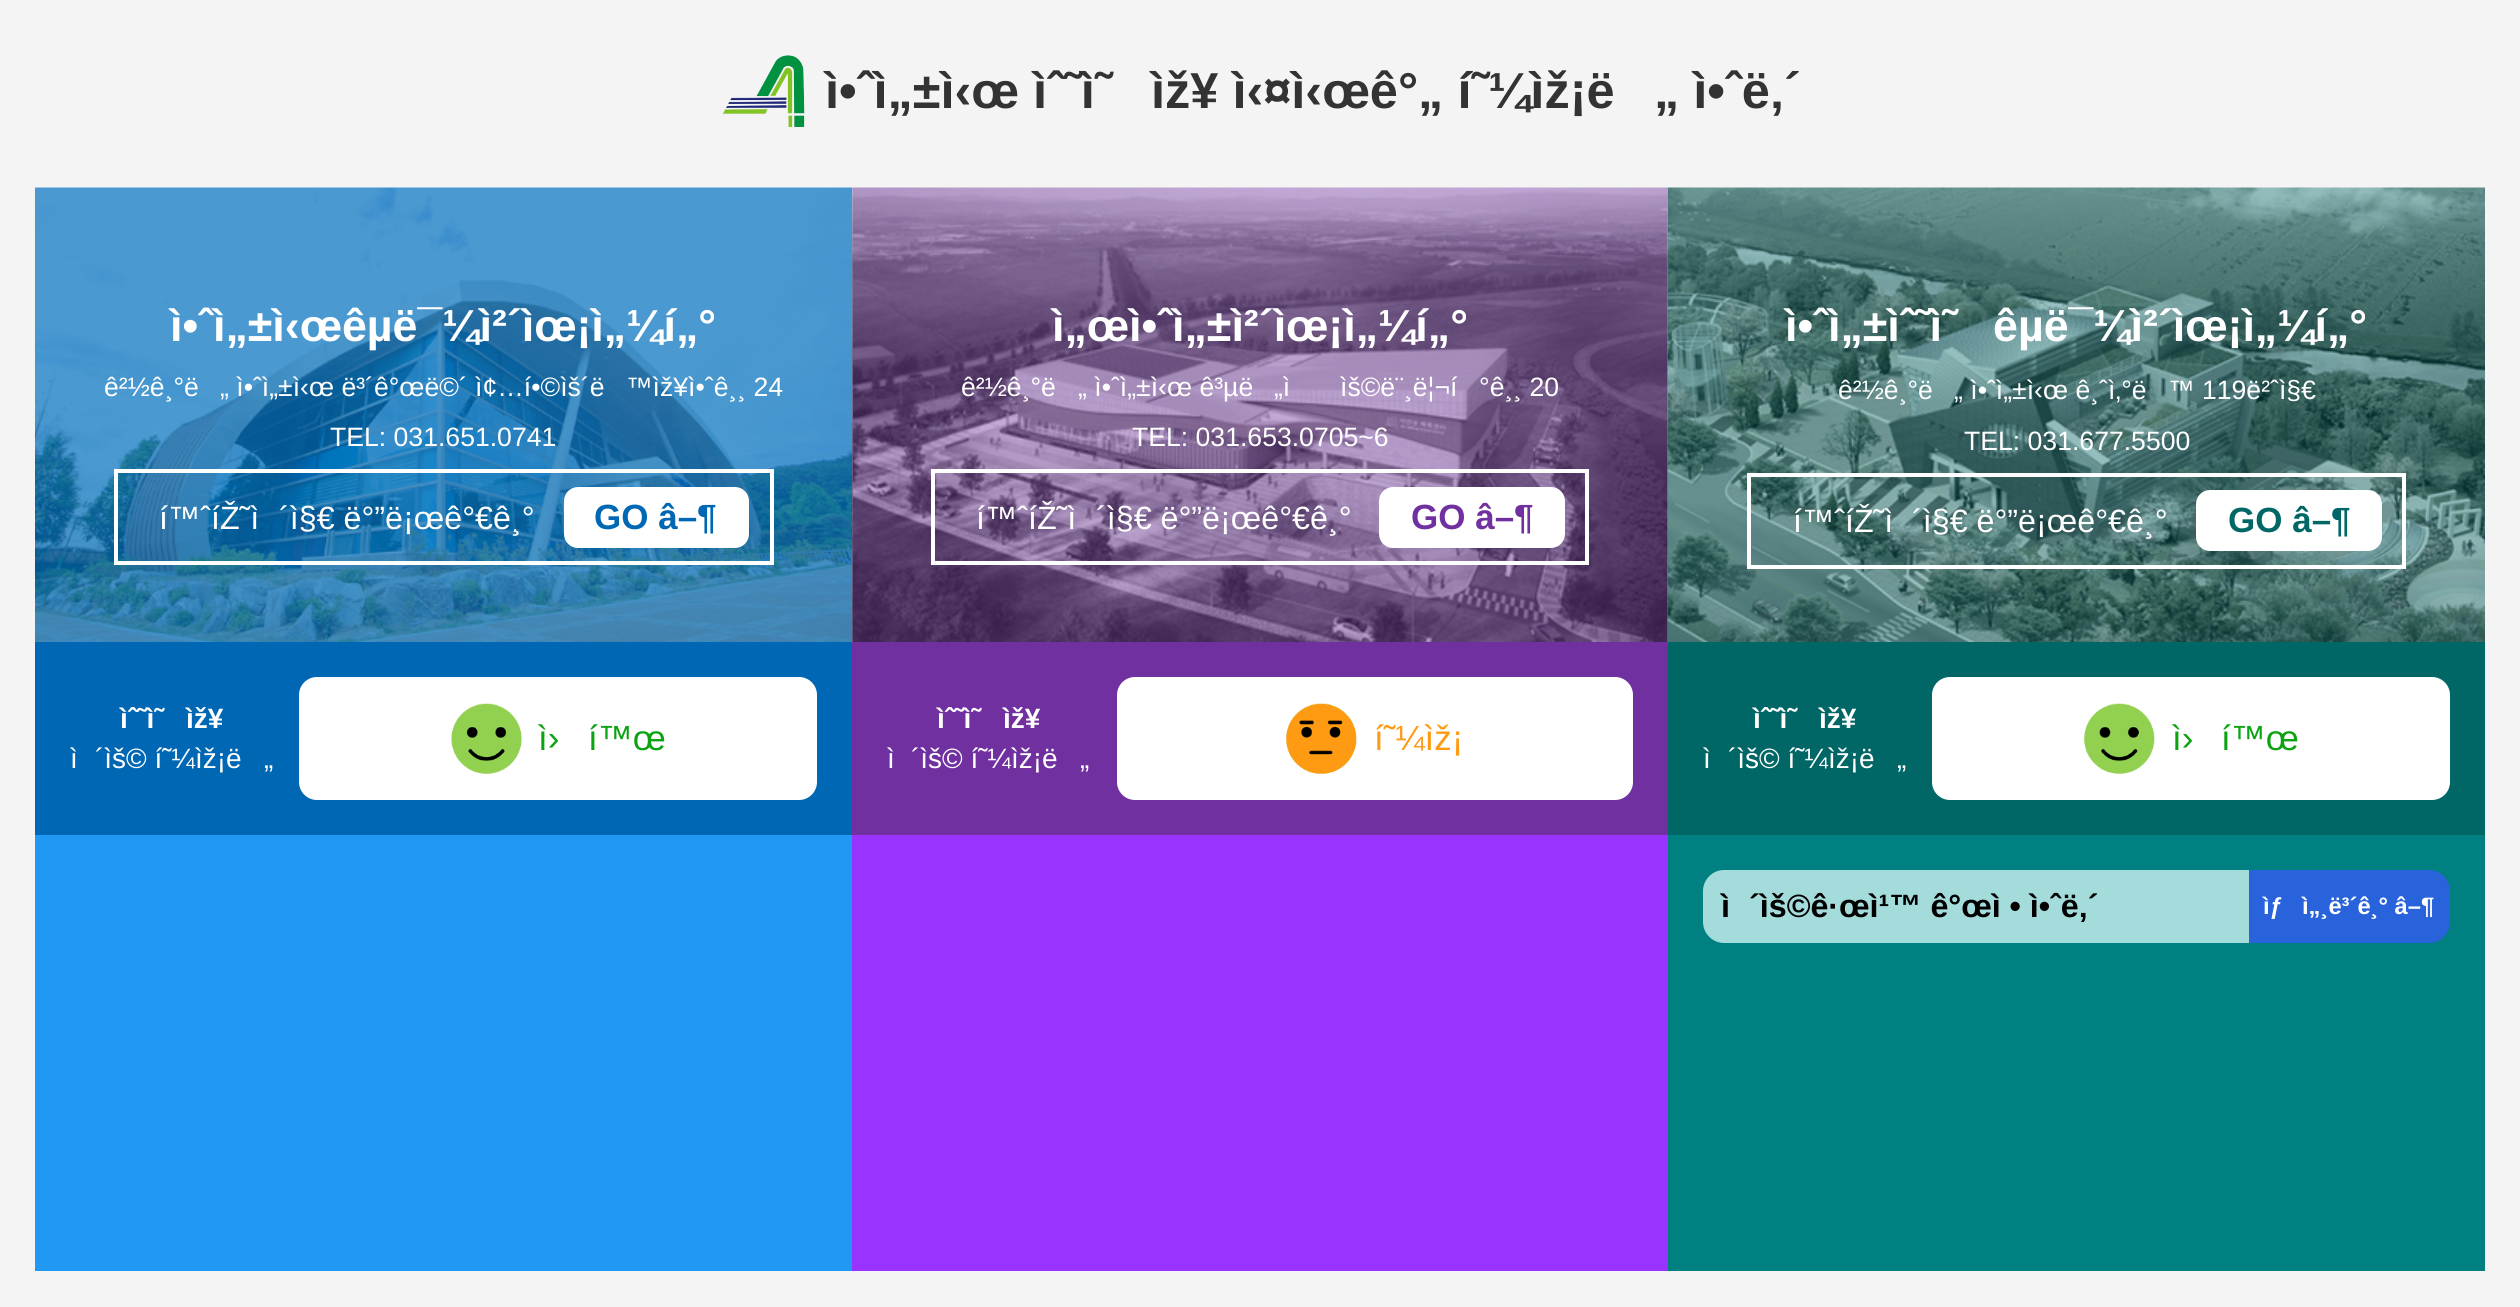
#include <cairo.h>
#include <math.h>
#include <stddef.h>


static void set_color(cairo_t *cr, unsigned color) {
    cairo_set_source_rgb(cr, (color >> 16) / 255.0, (color >> 8 & 255) / 255.0, (color & 255) / 255.0);
}

static void draw_text(cairo_t *cr, double x, double y, const char *s, const char *family, double size, int italic, int bold, unsigned color) {
    cairo_select_font_face(cr, family, italic ? CAIRO_FONT_SLANT_ITALIC : CAIRO_FONT_SLANT_NORMAL,
        bold ? CAIRO_FONT_WEIGHT_BOLD : CAIRO_FONT_WEIGHT_NORMAL);
    cairo_set_font_size(cr, size);
    set_color(cr, color);
    cairo_move_to(cr, x, y);
    cairo_show_text(cr, s);
}

static void fill_rect(cairo_t *cr, double x, double y, double w, double h, unsigned color) {
    set_color(cr, color);
    cairo_rectangle(cr, x, y, w, h);
    cairo_fill(cr);
}

static void rounded_rect(cairo_t *cr, double x, double y, double w, double h, double r) {
    cairo_new_sub_path(cr);
    cairo_arc(cr, x + w - r, y + h - r, r, 0, M_PI / 2);
    cairo_arc(cr, x + r, y + h - r, r, M_PI / 2, M_PI);
    cairo_arc(cr, x + r, y + r, r, M_PI, 1.5 * M_PI);
    cairo_arc(cr, x + w - r, y + r, r, 1.5 * M_PI, 2 * M_PI);
    cairo_close_path(cr);
}

static void draw_image(cairo_t *cr, const char *path, double x, double y, double w, double h) {
    cairo_surface_t *image = cairo_image_surface_create_from_png(path);
    cairo_save(cr);
    cairo_set_source_surface(cr, image, x, y);
    cairo_rectangle(cr, x, y, w, h);
    cairo_fill(cr);
    cairo_restore(cr);
    cairo_surface_destroy(image);
}

int main(void) {
    cairo_surface_t *surface = cairo_image_surface_create(CAIRO_FORMAT_RGB24, 2520, 1307);
    cairo_t *cr = cairo_create(surface);
    cairo_font_options_t *options = cairo_font_options_create();
    cairo_font_options_set_hint_metrics(options, CAIRO_HINT_METRICS_OFF);
    cairo_font_options_set_hint_style(options, CAIRO_HINT_STYLE_NONE);
    cairo_set_font_options(cr, options);
    cairo_set_miter_limit(cr, 4);
    set_color(cr, 0xF4F4F4);
    cairo_paint(cr);
    draw_image(cr, "assets/img1.png", 722, 55, 83, 72);
    draw_text(cr, 825, 108, "ì•ˆì„±ì‹œ ìˆ˜ì˜", "Liberation Sans", 50.5, 0, 1, 0x333333);
    draw_text(cr, 1151, 108, "ìž¥ ì‹¤ì‹œê°„ í˜¼ìž¡ë", "Liberation Sans", 50.5, 0, 1, 0x333333);
    draw_text(cr, 1654, 108, "„ ì•ˆë‚´", "Liberation Sans", 50.5, 0, 1, 0x333333);
    draw_image(cr, "assets/img2.png", 35, 187, 818, 455);
    draw_text(cr, 170, 341, "ì•ˆì„±ì‹œêµë¯¼ì²´ìœ¡ì„¼í„°", "Liberation Sans", 44.75, 0, 1, 0xFFFFFF);
    draw_text(cr, 104, 396, "ê²½ê¸°ë", "Liberation Sans", 26.6, 0, 0, 0xFFFFFF);
    draw_text(cr, 220, 396, "„ ì•ˆì„±ì‹œ ë³´ê°œë©´ ì¢…í•©ìš´ë", "Liberation Sans", 26.6, 0, 0, 0xFFFFFF);
    draw_text(cr, 626, 396, "™ìž¥ì•ˆê¸¸ 24", "Liberation Sans", 26.6, 0, 0, 0xFFFFFF);
    draw_text(cr, 330, 446, "TEL: 031.651.0741", "Liberation Sans", 26.6, 0, 0, 0xFFFFFF);
    cairo_rectangle(cr, 116, 471, 656, 92);
    cairo_set_line_width(cr, 4);
    cairo_stroke(cr);
    draw_text(cr, 159, 529, "í™ˆíŽ˜ì", "Liberation Sans", 32.25, 0, 0, 0xFFFFFF);
    draw_text(cr, 279, 529, "´ì§€ ë°”ë¡œê°€ê¸°", "Liberation Sans", 32.25, 0, 0, 0xFFFFFF);
    rounded_rect(cr, 564, 487, 185, 61, 14);
    cairo_fill(cr);
    draw_text(cr, 594, 529, "GO â–¶", "Liberation Sans", 35, 0, 1, 0x0067B4);
    fill_rect(cr, 35, 642, 817, 193, 0x0067B4);
    draw_text(cr, 120, 728, "ìˆ˜ì˜", "Liberation Sans", 28, 0, 1, 0xFFFFFF);
    draw_text(cr, 186, 728, "ìž¥", "Liberation Sans", 28, 0, 1, 0xFFFFFF);
    draw_text(cr, 70, 768, "ì", "Liberation Sans", 28, 0, 0, 0xFFFFFF);
    draw_text(cr, 95, 768, "´ìš© í˜¼ìž¡ë", "Liberation Sans", 28, 0, 0, 0xFFFFFF);
    draw_text(cr, 264, 768, "„", "Liberation Sans", 28, 0, 0, 0xFFFFFF);
    rounded_rect(cr, 299, 677, 518, 123, 18);
    cairo_fill(cr);
    draw_image(cr, "assets/img3.png", 451, 703, 71, 71);
    draw_text(cr, 538, 750, "ì›", "Liberation Sans", 35, 0, 0, 0x0CA313);
    draw_text(cr, 588, 750, "í™œ", "Liberation Sans", 35, 0, 0, 0x0CA313);
    fill_rect(cr, 35, 835, 817, 436, 0x2198F3);
    draw_image(cr, "assets/img4.png", 852, 187, 816, 455);
    draw_text(cr, 1052, 341, "ì„œì•ˆì„±ì²´ìœ¡ì„¼í„°", "Liberation Sans", 44.75, 0, 1, 0xFFFFFF);
    draw_text(cr, 961, 396, "ê²½ê¸°ë", "Liberation Sans", 26.6, 0, 0, 0xFFFFFF);
    draw_text(cr, 1078, 396, "„ ì•ˆì„±ì‹œ ê³µë", "Liberation Sans", 26.6, 0, 0, 0xFFFFFF);
    draw_text(cr, 1274, 396, "„ì", "Liberation Sans", 26.6, 0, 0, 0xFFFFFF);
    draw_text(cr, 1340, 396, "ìš©ë¨¸ë¦¬í", "Liberation Sans", 26.6, 0, 0, 0xFFFFFF);
    draw_text(cr, 1479, 396, "°ê¸¸ 20", "Liberation Sans", 26.6, 0, 0, 0xFFFFFF);
    draw_text(cr, 1132, 446, "TEL: 031.653.0705~6", "Liberation Sans", 26.6, 0, 0, 0xFFFFFF);
    cairo_rectangle(cr, 933, 471, 654, 92);
    cairo_stroke(cr);
    draw_text(cr, 976, 529, "í™ˆíŽ˜ì", "Liberation Sans", 32.25, 0, 0, 0xFFFFFF);
    draw_text(cr, 1096, 529, "´ì§€ ë°”ë¡œê°€ê¸°", "Liberation Sans", 32.25, 0, 0, 0xFFFFFF);
    rounded_rect(cr, 1379, 487, 186, 61, 14);
    cairo_fill(cr);
    draw_text(cr, 1411, 529, "GO â–¶", "Liberation Sans", 35, 0, 1, 0x7030A0);
    fill_rect(cr, 852, 642, 816, 193, 0x7030A0);
    draw_text(cr, 937, 728, "ìˆ˜ì˜", "Liberation Sans", 28, 0, 1, 0xFFFFFF);
    draw_text(cr, 1003, 728, "ìž¥", "Liberation Sans", 28, 0, 1, 0xFFFFFF);
    draw_text(cr, 887, 768, "ì", "Liberation Sans", 28, 0, 0, 0xFFFFFF);
    draw_text(cr, 911, 768, "´ìš© í˜¼ìž¡ë", "Liberation Sans", 28, 0, 0, 0xFFFFFF);
    draw_text(cr, 1080, 768, "„", "Liberation Sans", 28, 0, 0, 0xFFFFFF);
    rounded_rect(cr, 1117, 677, 516, 123, 18);
    cairo_fill(cr);
    draw_image(cr, "assets/img5.png", 1286, 703, 71, 71);
    draw_text(cr, 1374, 750, "í˜¼ìž¡", "Liberation Sans", 35, 0, 0, 0xFF9A13);
    fill_rect(cr, 852, 835, 816, 436, 0x9933FF);
    draw_image(cr, "assets/img6.png", 1667, 187, 818, 456);
    draw_text(cr, 1785, 341, "ì•ˆì„±ìˆ˜ì˜", "Liberation Sans", 44.75, 0, 1, 0xFFFFFF);
    draw_text(cr, 1993, 341, "êµë¯¼ì²´ìœ¡ì„¼í„°", "Liberation Sans", 44.75, 0, 1, 0xFFFFFF);
    draw_text(cr, 1838, 399, "ê²½ê¸°ë", "Liberation Sans", 26.6, 0, 0, 0xFFFFFF);
    draw_text(cr, 1954, 399, "„ ì•ˆì„±ì‹œ ê¸ˆì‚°ë", "Liberation Sans", 26.6, 0, 0, 0xFFFFFF);
    draw_text(cr, 2168, 399, "™ 119ë²ˆì§€", "Liberation Sans", 26.6, 0, 0, 0xFFFFFF);
    draw_text(cr, 1964, 450, "TEL: 031.677.5500", "Liberation Sans", 26.6, 0, 0, 0xFFFFFF);
    cairo_rectangle(cr, 1749, 475, 655, 92);
    cairo_stroke(cr);
    draw_text(cr, 1793, 532, "í™ˆíŽ˜ì", "Liberation Sans", 32.25, 0, 0, 0xFFFFFF);
    draw_text(cr, 1912, 532, "´ì§€ ë°”ë¡œê°€ê¸°", "Liberation Sans", 32.25, 0, 0, 0xFFFFFF);
    rounded_rect(cr, 2196, 490, 186, 61, 14);
    cairo_fill(cr);
    draw_text(cr, 2228, 532, "GO â–¶", "Liberation Sans", 35, 0, 1, 0x006666);
    fill_rect(cr, 1668, 642, 817, 193, 0x006666);
    draw_text(cr, 1753, 728, "ìˆ˜ì˜", "Liberation Sans", 28, 0, 1, 0xFFFFFF);
    draw_text(cr, 1819, 728, "ìž¥", "Liberation Sans", 28, 0, 1, 0xFFFFFF);
    draw_text(cr, 1703, 768, "ì", "Liberation Sans", 28, 0, 0, 0xFFFFFF);
    draw_text(cr, 1728, 768, "´ìš© í˜¼ìž¡ë", "Liberation Sans", 28, 0, 0, 0xFFFFFF);
    draw_text(cr, 1897, 768, "„", "Liberation Sans", 28, 0, 0, 0xFFFFFF);
    rounded_rect(cr, 1932, 677, 518, 123, 18);
    cairo_fill(cr);
    draw_image(cr, "assets/img7.png", 2084, 703, 71, 71);
    draw_text(cr, 2172, 750, "ì›", "Liberation Sans", 35, 0, 0, 0x0CA313);
    draw_text(cr, 2221, 750, "í™œ", "Liberation Sans", 35, 0, 0, 0x0CA313);
    fill_rect(cr, 1668, 835, 817, 436, 0x008080);
    set_color(cr, 0xA4DBDB);
    cairo_new_path(cr);
    cairo_move_to(cr, 1724, 870);
    cairo_line_to(cr, 2249, 870);
    cairo_line_to(cr, 2249, 943);
    cairo_line_to(cr, 1724, 943);
    cairo_curve_to(cr, 1712.5, 943, 1703, 933.5, 1703, 922);
    cairo_line_to(cr, 1703, 891);
    cairo_curve_to(cr, 1703, 879.5, 1712.5, 870, 1724, 870);
    cairo_close_path(cr);
    cairo_fill(cr);
    draw_text(cr, 1721, 917, "ì", "Liberation Sans", 32.25, 0, 1, 0x000000);
    draw_text(cr, 1749, 917, "´ìš©ê·œì¹™ ê°œì • ì•ˆë‚´", "Liberation Sans", 32.25, 0, 1, 0x000000);
    set_color(cr, 0x2863DB);
    cairo_new_path(cr);
    cairo_move_to(cr, 2249, 870);
    cairo_line_to(cr, 2429, 870);
    cairo_curve_to(cr, 2440.5, 870, 2450, 879.5, 2450, 891);
    cairo_line_to(cr, 2450, 922);
    cairo_curve_to(cr, 2450, 933.5, 2440.5, 943, 2429, 943);
    cairo_line_to(cr, 2249, 943);
    cairo_close_path(cr);
    cairo_fill(cr);
    draw_text(cr, 2263, 914, "ìƒ", "Liberation Sans", 23.75, 0, 1, 0xFFFFFF);
    draw_text(cr, 2302, 914, "ì„¸ë³´ê¸° â–¶", "Liberation Sans", 23.75, 0, 1, 0xFFFFFF);
    cairo_surface_write_to_png(surface, "output.png");
    cairo_font_options_destroy(options);
    cairo_destroy(cr);
    cairo_surface_destroy(surface);
    return 0;
}
